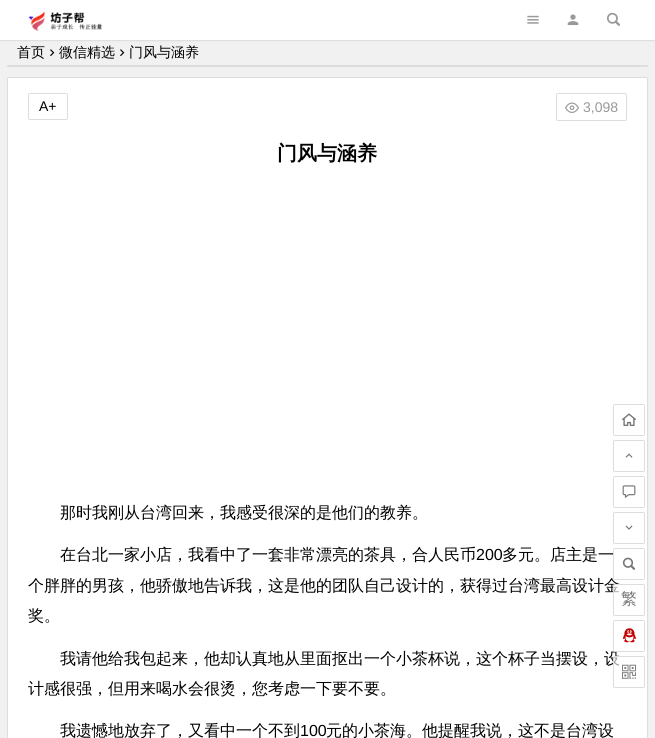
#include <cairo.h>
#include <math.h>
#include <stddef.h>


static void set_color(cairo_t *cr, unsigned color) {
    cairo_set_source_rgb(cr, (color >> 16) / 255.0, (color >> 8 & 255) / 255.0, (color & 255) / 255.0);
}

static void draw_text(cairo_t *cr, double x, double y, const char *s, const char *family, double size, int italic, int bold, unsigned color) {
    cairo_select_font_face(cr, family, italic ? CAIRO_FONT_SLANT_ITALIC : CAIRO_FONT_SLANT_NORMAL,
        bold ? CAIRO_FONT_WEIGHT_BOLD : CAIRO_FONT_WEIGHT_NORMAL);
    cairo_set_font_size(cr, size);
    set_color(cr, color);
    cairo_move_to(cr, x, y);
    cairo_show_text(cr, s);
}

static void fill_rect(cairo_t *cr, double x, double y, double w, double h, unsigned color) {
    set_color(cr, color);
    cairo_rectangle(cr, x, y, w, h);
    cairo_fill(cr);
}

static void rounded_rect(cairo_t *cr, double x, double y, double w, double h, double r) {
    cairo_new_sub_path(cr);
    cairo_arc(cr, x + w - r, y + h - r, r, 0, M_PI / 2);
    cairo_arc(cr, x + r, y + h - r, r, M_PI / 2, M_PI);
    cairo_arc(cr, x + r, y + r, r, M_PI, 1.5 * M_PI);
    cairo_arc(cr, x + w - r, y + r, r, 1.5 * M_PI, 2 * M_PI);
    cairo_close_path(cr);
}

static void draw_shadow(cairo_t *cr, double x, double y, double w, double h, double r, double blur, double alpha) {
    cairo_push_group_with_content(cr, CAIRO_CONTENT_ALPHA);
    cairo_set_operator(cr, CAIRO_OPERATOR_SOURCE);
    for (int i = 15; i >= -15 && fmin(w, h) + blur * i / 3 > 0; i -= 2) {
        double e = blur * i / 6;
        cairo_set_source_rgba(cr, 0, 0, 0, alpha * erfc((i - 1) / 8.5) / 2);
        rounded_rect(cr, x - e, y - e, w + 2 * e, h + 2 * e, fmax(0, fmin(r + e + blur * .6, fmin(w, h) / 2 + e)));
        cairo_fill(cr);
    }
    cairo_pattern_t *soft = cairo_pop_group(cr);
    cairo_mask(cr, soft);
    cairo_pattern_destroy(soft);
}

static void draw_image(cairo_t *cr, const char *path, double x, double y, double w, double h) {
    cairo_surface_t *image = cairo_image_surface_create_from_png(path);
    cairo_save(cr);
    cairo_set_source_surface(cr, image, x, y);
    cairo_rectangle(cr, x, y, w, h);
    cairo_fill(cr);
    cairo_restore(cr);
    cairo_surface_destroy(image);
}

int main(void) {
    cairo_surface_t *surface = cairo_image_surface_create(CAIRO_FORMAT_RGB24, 655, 738);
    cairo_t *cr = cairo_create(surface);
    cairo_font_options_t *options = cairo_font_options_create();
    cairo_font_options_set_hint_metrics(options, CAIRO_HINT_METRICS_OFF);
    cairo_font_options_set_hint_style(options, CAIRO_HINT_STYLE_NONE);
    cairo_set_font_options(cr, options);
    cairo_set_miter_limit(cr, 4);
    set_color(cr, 0xF1F1F1);
    cairo_paint(cr);
    set_color(cr, 0x000000);
    draw_shadow(cr, 0, 1, 655, 40, 0, 0.5, 0.08);
    fill_rect(cr, 0, 0, 655, 40, 0xFFFFFF);
    draw_image(cr, "assets/img1.png", 28, 11, 74, 20);
    draw_image(cr, "assets/img2.png", 527, 15, 12, 9);
    draw_image(cr, "assets/img3.png", 567, 14, 12, 12);
    draw_image(cr, "assets/img4.png", 607, 12, 13, 14);
    draw_text(cr, 17, 57, "首页", "WenQuanYi Zen Hei Medium", 14, 0, 0, 0x000000);
    draw_image(cr, "assets/img5.png", 50, 49, 5, 8);
    draw_text(cr, 59, 57, "微信精选", "WenQuanYi Zen Hei Medium", 14, 0, 0, 0x000000);
    draw_image(cr, "assets/img5.png", 120, 49, 5, 8);
    draw_text(cr, 129, 57, "门风与涵养", "WenQuanYi Zen Hei Medium", 14, 0, 0, 0x000000);
    set_color(cr, 0xDDDDDD);
    rounded_rect(cr, 7, 65, 641, 2, 1);
    cairo_fill(cr);
    set_color(cr, 0xFFFFFF);
    rounded_rect(cr, 7.5, 77.5, 640, 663, 1.5);
    cairo_fill_preserve(cr);
    set_color(cr, 0xDDDDDD);
    cairo_set_line_width(cr, 1);
    cairo_stroke(cr);
    rounded_rect(cr, 28.5, 93.5, 39, 26, 1.5);
    cairo_stroke(cr);
    draw_text(cr, 39, 111, "A+", "Liberation Sans", 14, 0, 0, 0x000000);
    rounded_rect(cr, 556.5, 93.5, 70, 27, 1.5);
    set_color(cr, 0xDDDDDD);
    cairo_stroke(cr);
    draw_image(cr, "assets/img6.png", 565, 102, 14, 11);
    draw_text(cr, 583, 112, "3,098", "Liberation Sans", 14, 0, 0, 0x999999);
    draw_text(cr, 60, 518, "那时我刚从台湾回来，我感受很深的是他们的教养。", "WenQuanYi Zen Hei Medium", 16, 0, 0, 0x000000);
    draw_text(cr, 60, 560, "在台北一家小店，我看中了一套非常漂亮的茶具，合人民币", "WenQuanYi Zen Hei Medium", 16, 0, 0, 0x000000);
    draw_text(cr, 476, 560, "200", "Liberation Sans", 16, 0, 0, 0x000000);
    draw_text(cr, 502, 560, "多元。店主是一", "WenQuanYi Zen Hei Medium", 16, 0, 0, 0x000000);
    draw_text(cr, 28, 591, "个胖胖的男孩，他骄傲地告诉我，这是他的团队自己设计的，获得过台湾最高设计金", "WenQuanYi Zen Hei Medium", 16, 0, 0, 0x000000);
    draw_text(cr, 28, 621, "奖。", "WenQuanYi Zen Hei Medium", 16, 0, 0, 0x000000);
    draw_text(cr, 60, 664, "我请他给我包起来，他却认真地从里面抠出一个小茶杯说，这个杯子当摆设，设", "WenQuanYi Zen Hei Medium", 16, 0, 0, 0x000000);
    draw_text(cr, 28, 694, "计感很强，但用来喝水会很烫，您考虑一下要不要。", "WenQuanYi Zen Hei Medium", 16, 0, 0, 0x000000);
    draw_text(cr, 60, 736, "我遗憾地放弃了，又看中一个不到", "WenQuanYi Zen Hei Medium", 16, 0, 0, 0x000000);
    draw_text(cr, 300, 736, "100", "Liberation Sans", 16, 0, 0, 0x000000);
    draw_text(cr, 326, 736, "元的小茶海。他提醒我说，这不是台湾设", "WenQuanYi Zen Hei Medium", 16, 0, 0, 0x000000);
    draw_text(cr, 277, 160, "门风与涵养", "WenQuanYi Zen Hei", 20, 0, 1, 0x000000);
    rounded_rect(cr, 613.5, 404.5, 31, 31, 1.5);
    set_color(cr, 0xDDDDDD);
    cairo_stroke(cr);
    draw_image(cr, "assets/img7.png", 622, 413, 14, 14);
    rounded_rect(cr, 613.5, 440.5, 31, 31, 1.5);
    cairo_stroke(cr);
    draw_image(cr, "assets/img8.png", 625, 453, 8, 5);
    rounded_rect(cr, 613.5, 476.5, 31, 31, 1.5);
    cairo_stroke(cr);
    draw_image(cr, "assets/img9.png", 622, 485, 14, 13);
    rounded_rect(cr, 613.5, 512.5, 31, 31, 1.5);
    cairo_stroke(cr);
    draw_image(cr, "assets/img10.png", 625, 525, 8, 5);
    cairo_set_source_rgba(cr, 1, 1, 1, 0.6);
    rounded_rect(cr, 613.5, 548.5, 31, 31, 1.5);
    cairo_fill_preserve(cr);
    set_color(cr, 0xDDDDDD);
    cairo_stroke(cr);
    draw_image(cr, "assets/img11.png", 622, 557, 14, 13);
    cairo_set_source_rgba(cr, 1, 1, 1, 0.6);
    rounded_rect(cr, 613.5, 584.5, 31, 31, 1.5);
    cairo_fill_preserve(cr);
    set_color(cr, 0xDDDDDD);
    cairo_stroke(cr);
    draw_text(cr, 621, 604, "繁", "WenQuanYi Zen Hei Medium", 16, 0, 0, 0x777777);
    cairo_set_source_rgba(cr, 1, 1, 1, 0.6);
    rounded_rect(cr, 613.5, 620.5, 31, 31, 1.5);
    cairo_fill_preserve(cr);
    set_color(cr, 0xDDDDDD);
    cairo_stroke(cr);
    draw_image(cr, "assets/img12.png", 623, 628, 13, 15);
    cairo_set_source_rgba(cr, 1, 1, 1, 0.6);
    rounded_rect(cr, 613.5, 656.5, 31, 31, 1.5);
    cairo_fill_preserve(cr);
    set_color(cr, 0xDDDDDD);
    cairo_stroke(cr);
    draw_image(cr, "assets/img13.png", 622, 664, 14, 15);
    cairo_surface_write_to_png(surface, "output.png");
    cairo_font_options_destroy(options);
    cairo_destroy(cr);
    cairo_surface_destroy(surface);
    return 0;
}
